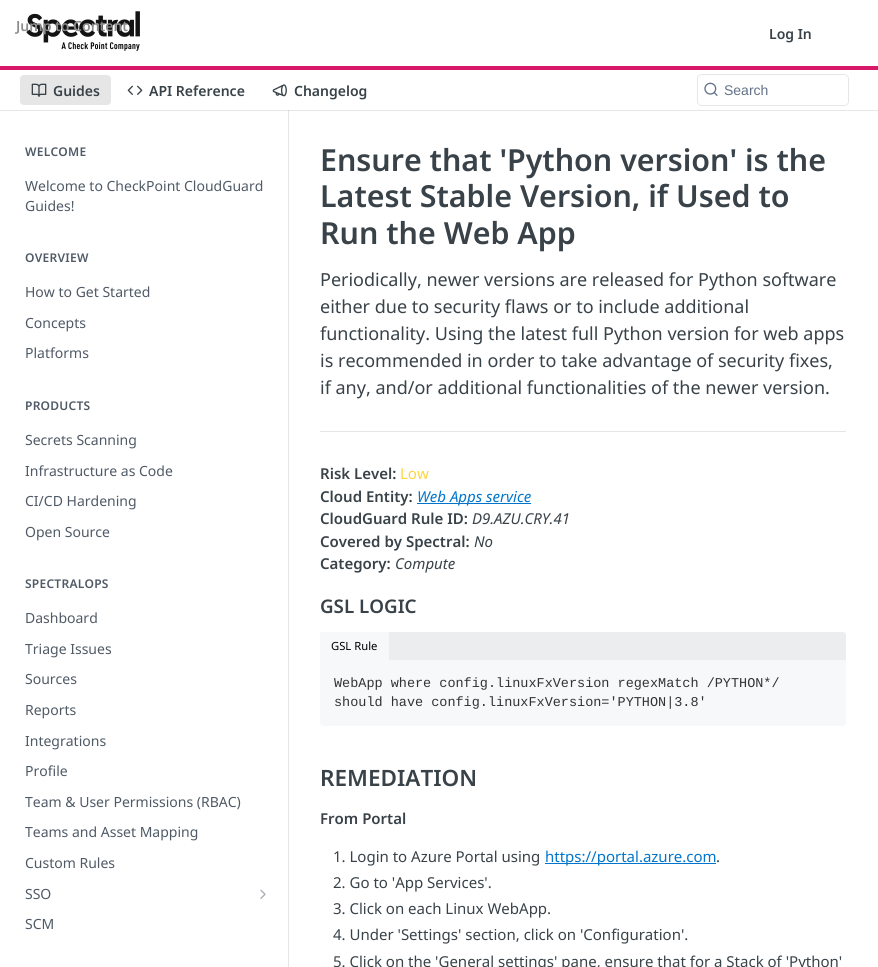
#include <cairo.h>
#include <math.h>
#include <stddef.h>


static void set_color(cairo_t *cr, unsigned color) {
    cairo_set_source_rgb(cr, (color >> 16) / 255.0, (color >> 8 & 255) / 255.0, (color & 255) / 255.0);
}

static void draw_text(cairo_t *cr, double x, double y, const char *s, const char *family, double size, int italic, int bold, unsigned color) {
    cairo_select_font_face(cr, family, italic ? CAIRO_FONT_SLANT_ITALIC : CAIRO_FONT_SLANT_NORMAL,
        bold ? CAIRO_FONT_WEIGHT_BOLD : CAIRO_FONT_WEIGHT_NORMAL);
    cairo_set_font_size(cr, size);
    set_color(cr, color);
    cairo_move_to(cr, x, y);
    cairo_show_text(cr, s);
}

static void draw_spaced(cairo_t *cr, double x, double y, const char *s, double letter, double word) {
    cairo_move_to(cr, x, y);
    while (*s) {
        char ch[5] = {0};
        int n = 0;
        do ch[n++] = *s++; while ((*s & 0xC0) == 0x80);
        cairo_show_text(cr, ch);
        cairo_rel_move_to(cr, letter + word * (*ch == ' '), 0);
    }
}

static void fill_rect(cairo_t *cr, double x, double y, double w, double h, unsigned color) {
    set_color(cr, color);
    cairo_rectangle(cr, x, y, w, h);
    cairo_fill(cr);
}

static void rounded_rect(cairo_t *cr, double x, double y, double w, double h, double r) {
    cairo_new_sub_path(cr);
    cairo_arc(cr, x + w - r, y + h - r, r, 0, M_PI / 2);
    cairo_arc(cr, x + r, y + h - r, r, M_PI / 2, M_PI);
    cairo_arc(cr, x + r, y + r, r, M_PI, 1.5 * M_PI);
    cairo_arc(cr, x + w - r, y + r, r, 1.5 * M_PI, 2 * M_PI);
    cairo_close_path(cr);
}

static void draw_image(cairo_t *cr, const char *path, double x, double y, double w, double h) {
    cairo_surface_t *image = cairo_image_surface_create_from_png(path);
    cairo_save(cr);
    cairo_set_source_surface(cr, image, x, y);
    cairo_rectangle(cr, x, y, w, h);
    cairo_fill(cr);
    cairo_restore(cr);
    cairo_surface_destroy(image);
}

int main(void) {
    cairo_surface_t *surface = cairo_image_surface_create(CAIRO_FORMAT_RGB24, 878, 967);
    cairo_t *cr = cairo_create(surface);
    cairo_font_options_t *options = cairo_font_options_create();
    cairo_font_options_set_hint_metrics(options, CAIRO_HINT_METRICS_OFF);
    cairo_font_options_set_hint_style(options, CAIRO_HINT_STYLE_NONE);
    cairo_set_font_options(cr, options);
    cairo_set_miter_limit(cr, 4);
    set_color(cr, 0xFFFFFF);
    cairo_paint(cr);
    fill_rect(cr, 0, 110, 878, 1, 0xE6E6E6);
    fill_rect(cr, 0, 66, 878, 4, 0xD61A69);
    draw_image(cr, "assets/img1.png", 26, 11, 114, 40);
    draw_text(cr, 16, 31, "Jump to Content", "Noto Sans SemiBold", 14, 0, 0, 0x8D8D8D);
    draw_text(cr, 769, 39, "Log In", "Noto Sans SemiBold", 14, 0, 0, 0x384248);
    set_color(cr, 0xE6E6E6);
    rounded_rect(cr, 20, 75, 91, 30, 4);
    cairo_fill(cr);
    draw_image(cr, "assets/img2.png", 31, 83, 16, 14);
    draw_text(cr, 53, 96, "Guides", "Noto Sans SemiBold", 14, 0, 0, 0x384248);
    draw_image(cr, "assets/img3.png", 127, 85, 16, 10);
    draw_text(cr, 149, 96, "API Reference", "Noto Sans SemiBold", 14, 0, 0, 0x384248);
    draw_image(cr, "assets/img4.png", 272, 84, 15, 13);
    draw_text(cr, 294, 96, "Changelog", "Noto Sans SemiBold", 14, 0, 0, 0x384248);
    rounded_rect(cr, 697.5, 74.5, 151, 31, 4.5);
    set_color(cr, 0xE6E6E6);
    cairo_set_line_width(cr, 1);
    cairo_stroke(cr);
    set_color(cr, 0xFFFFFF);
    rounded_rect(cr, 698, 75, 150, 30, 4);
    cairo_fill(cr);
    draw_image(cr, "assets/img5.png", 704, 82, 14, 14);
    draw_text(cr, 724, 95, "Search", "Liberation Sans", 14, 0, 0, 0x637288);
    fill_rect(cr, 288, 110, 1, 857, 0xE6E6E6);
    fill_rect(cr, 288, 110, 1, 1, 0xCFCFCF);
    cairo_select_font_face(cr, "Noto Sans SemiBold", CAIRO_FONT_SLANT_NORMAL, CAIRO_FONT_WEIGHT_NORMAL);
    cairo_set_font_size(cr, 12);
    set_color(cr, 0x4F5A66);
    draw_spaced(cr, 25, 156, "WELCOME", 0.25, 0);
    draw_text(cr, 25, 191, "Welcome to CheckPoint CloudGuard", "Noto Sans", 14, 0, 0, 0x4F5A66);
    draw_text(cr, 25, 211, "Guides!", "Noto Sans", 14, 0, 0, 0x4F5A66);
    cairo_select_font_face(cr, "Noto Sans SemiBold", CAIRO_FONT_SLANT_NORMAL, CAIRO_FONT_WEIGHT_NORMAL);
    cairo_set_font_size(cr, 12);
    draw_spaced(cr, 25, 262, "OVERVIEW", 0.25, 0);
    draw_text(cr, 25, 297, "How to Get Started", "Noto Sans", 14, 0, 0, 0x4F5A66);
    draw_text(cr, 25, 328, "Concepts", "Noto Sans", 14, 0, 0, 0x4F5A66);
    draw_text(cr, 25, 358, "Platforms", "Noto Sans", 14, 0, 0, 0x4F5A66);
    cairo_select_font_face(cr, "Noto Sans SemiBold", CAIRO_FONT_SLANT_NORMAL, CAIRO_FONT_WEIGHT_NORMAL);
    cairo_set_font_size(cr, 12);
    draw_spaced(cr, 25, 410, "PRODUCTS", 0.25, 0);
    draw_text(cr, 25, 445, "Secrets Scanning", "Noto Sans", 14, 0, 0, 0x4F5A66);
    draw_text(cr, 25, 476, "Infrastructure as Code", "Noto Sans", 14, 0, 0, 0x4F5A66);
    draw_text(cr, 25, 506, "CI/CD Hardening", "Noto Sans", 14, 0, 0, 0x4F5A66);
    draw_text(cr, 25, 537, "Open Source", "Noto Sans", 14, 0, 0, 0x4F5A66);
    cairo_select_font_face(cr, "Noto Sans SemiBold", CAIRO_FONT_SLANT_NORMAL, CAIRO_FONT_WEIGHT_NORMAL);
    cairo_set_font_size(cr, 12);
    draw_spaced(cr, 25, 588, "SPECTRALOPS", 0.25, 0);
    draw_text(cr, 25, 623, "Dashboard", "Noto Sans", 14, 0, 0, 0x4F5A66);
    draw_text(cr, 25, 654, "Triage Issues", "Noto Sans", 14, 0, 0, 0x4F5A66);
    draw_text(cr, 25, 684, "Sources", "Noto Sans", 14, 0, 0, 0x4F5A66);
    draw_text(cr, 25, 715, "Reports", "Noto Sans", 14, 0, 0, 0x4F5A66);
    draw_text(cr, 25, 746, "Integrations", "Noto Sans", 14, 0, 0, 0x4F5A66);
    draw_text(cr, 25, 776, "Profile", "Noto Sans", 14, 0, 0, 0x4F5A66);
    draw_text(cr, 25, 807, "Team & User Permissions (RBAC)", "Noto Sans", 14, 0, 0, 0x4F5A66);
    draw_text(cr, 25, 837, "Teams and Asset Mapping", "Noto Sans", 14, 0, 0, 0x4F5A66);
    draw_text(cr, 25, 868, "Custom Rules", "Noto Sans", 14, 0, 0, 0x4F5A66);
    draw_text(cr, 25, 899, "SSO", "Noto Sans", 14, 0, 0, 0x4F5A66);
    draw_image(cr, "assets/img6.png", 260, 889, 6, 10);
    draw_text(cr, 25, 929, "SCM", "Noto Sans", 14, 0, 0, 0x4F5A66);
    fill_rect(cr, 320, 431, 526, 1, 0xE6E6E6);
    draw_text(cr, 320, 171, "Ensure that 'Python version' is the", "Noto Sans SemiBold", 30.4, 0, 0, 0x384248);
    draw_text(cr, 320, 207, "Latest Stable Version, if Used to", "Noto Sans SemiBold", 30.4, 0, 0, 0x384248);
    draw_text(cr, 320, 244, "Run the Web App", "Noto Sans SemiBold", 30.4, 0, 0, 0x384248);
    draw_text(cr, 320, 286, "Periodically, newer versions are released for Python software", "Noto Sans", 18, 0, 0, 0x384248);
    draw_text(cr, 320, 313, "either due to security flaws or to include additional", "Noto Sans", 18, 0, 0, 0x384248);
    draw_text(cr, 320, 340, "functionality. Using the latest full Python version for web apps", "Noto Sans", 18, 0, 0, 0x384248);
    draw_text(cr, 320, 367, "is recommended in order to take advantage of security fixes,", "Noto Sans", 18, 0, 0, 0x384248);
    draw_text(cr, 320, 394, "if any, and/or additional functionalities of the newer version.", "Noto Sans", 18, 0, 0, 0x384248);
    draw_text(cr, 320, 479, "Risk Level:", "Noto Sans SemiBold", 15, 0, 0, 0x384248);
    draw_text(cr, 400, 479, "Low", "Noto Sans", 15, 0, 0, 0xFFD546);
    draw_text(cr, 320, 502, "Cloud Entity:", "Noto Sans SemiBold", 15, 0, 0, 0x384248);
    fill_rect(cr, 417, 503, 114, 1, 0x0175CB);
    draw_text(cr, 417, 502, "Web Apps service", "Noto Sans", 15, 1, 0, 0x0175CB);
    draw_text(cr, 320, 524, "CloudGuard Rule ID:", "Noto Sans SemiBold", 15, 0, 0, 0x384248);
    draw_text(cr, 472, 524, "D9.AZU.CRY.41", "Noto Sans", 15, 1, 0, 0x384248);
    draw_text(cr, 320, 547, "Covered by Spectral:", "Noto Sans SemiBold", 15, 0, 0, 0x384248);
    draw_text(cr, 474, 547, "No", "Noto Sans", 15, 1, 0, 0x384248);
    draw_text(cr, 320, 569, "Category:", "Noto Sans SemiBold", 15, 0, 0, 0x384248);
    draw_text(cr, 395, 569, "Compute", "Noto Sans", 15, 1, 0, 0x384248);
    draw_text(cr, 320, 613, "GSL LOGIC", "Noto Sans SemiBold", 18.75, 0, 0, 0x384248);
    set_color(cr, 0xEBEDEF);
    cairo_new_path(cr);
    cairo_move_to(cr, 323, 632);
    cairo_line_to(cr, 843, 632);
    cairo_curve_to(cr, 844.5, 632, 846, 633.5, 846, 635);
    cairo_line_to(cr, 846, 660);
    cairo_line_to(cr, 320, 660);
    cairo_line_to(cr, 320, 635);
    cairo_curve_to(cr, 320, 633.5, 321.5, 632, 323, 632);
    cairo_close_path(cr);
    cairo_fill(cr);
    set_color(cr, 0xF6F8FA);
    cairo_new_path(cr);
    cairo_move_to(cr, 323, 632);
    cairo_line_to(cr, 389, 632);
    cairo_line_to(cr, 389, 660);
    cairo_line_to(cr, 320, 660);
    cairo_line_to(cr, 320, 635);
    cairo_curve_to(cr, 320, 633.5, 321.5, 632, 323, 632);
    cairo_close_path(cr);
    cairo_fill(cr);
    draw_text(cr, 331, 650, "GSL Rule", "Noto Sans", 11.25, 0, 0, 0x000000);
    set_color(cr, 0xF6F8FA);
    cairo_new_path(cr);
    cairo_move_to(cr, 320, 660);
    cairo_line_to(cr, 846, 660);
    cairo_line_to(cr, 846, 723);
    cairo_curve_to(cr, 846, 724.5, 844.5, 726, 843, 726);
    cairo_line_to(cr, 323, 726);
    cairo_curve_to(cr, 321.5, 726, 320, 724.5, 320, 723);
    cairo_close_path(cr);
    cairo_fill(cr);
    draw_text(cr, 334, 687, "WebApp where config.linuxFxVersion regexMatch /PYTHON*/", "Liberation Mono", 13.5, 0, 0, 0x333333);
    draw_text(cr, 334, 706, "should have config.linuxFxVersion='PYTHON|3.8'", "Liberation Mono", 13.5, 0, 0, 0x333333);
    draw_text(cr, 320, 786, "REMEDIATION", "Noto Sans SemiBold", 22.5, 0, 0, 0x384248);
    draw_text(cr, 320, 824, "From Portal", "Noto Sans SemiBold", 15, 0, 0, 0x384248);
    draw_text(cr, 333, 862, "1. Login to Azure Portal using", "Noto Sans", 15, 0, 0, 0x384248);
    fill_rect(cr, 545, 863, 171, 1, 0x0175CB);
    draw_text(cr, 545, 862, "https://portal.azure.com", "Noto Sans", 15, 0, 0, 0x0175CB);
    draw_text(cr, 716, 862, ".", "Noto Sans", 15, 0, 0, 0x384248);
    draw_text(cr, 333, 888, "2. Go to 'App Services'.", "Noto Sans", 15, 0, 0, 0x384248);
    draw_text(cr, 333, 914, "3. Click on each Linux WebApp.", "Noto Sans", 15, 0, 0, 0x384248);
    draw_text(cr, 333, 940, "4. Under 'Settings' section, click on 'Configuration'.", "Noto Sans", 15, 0, 0, 0x384248);
    draw_text(cr, 333, 967, "5. Click on the 'General settings' pane, ensure that for a Stack of 'Python'", "Noto Sans", 15, 0, 0, 0x384248);
    cairo_surface_write_to_png(surface, "output.png");
    cairo_font_options_destroy(options);
    cairo_destroy(cr);
    cairo_surface_destroy(surface);
    return 0;
}
